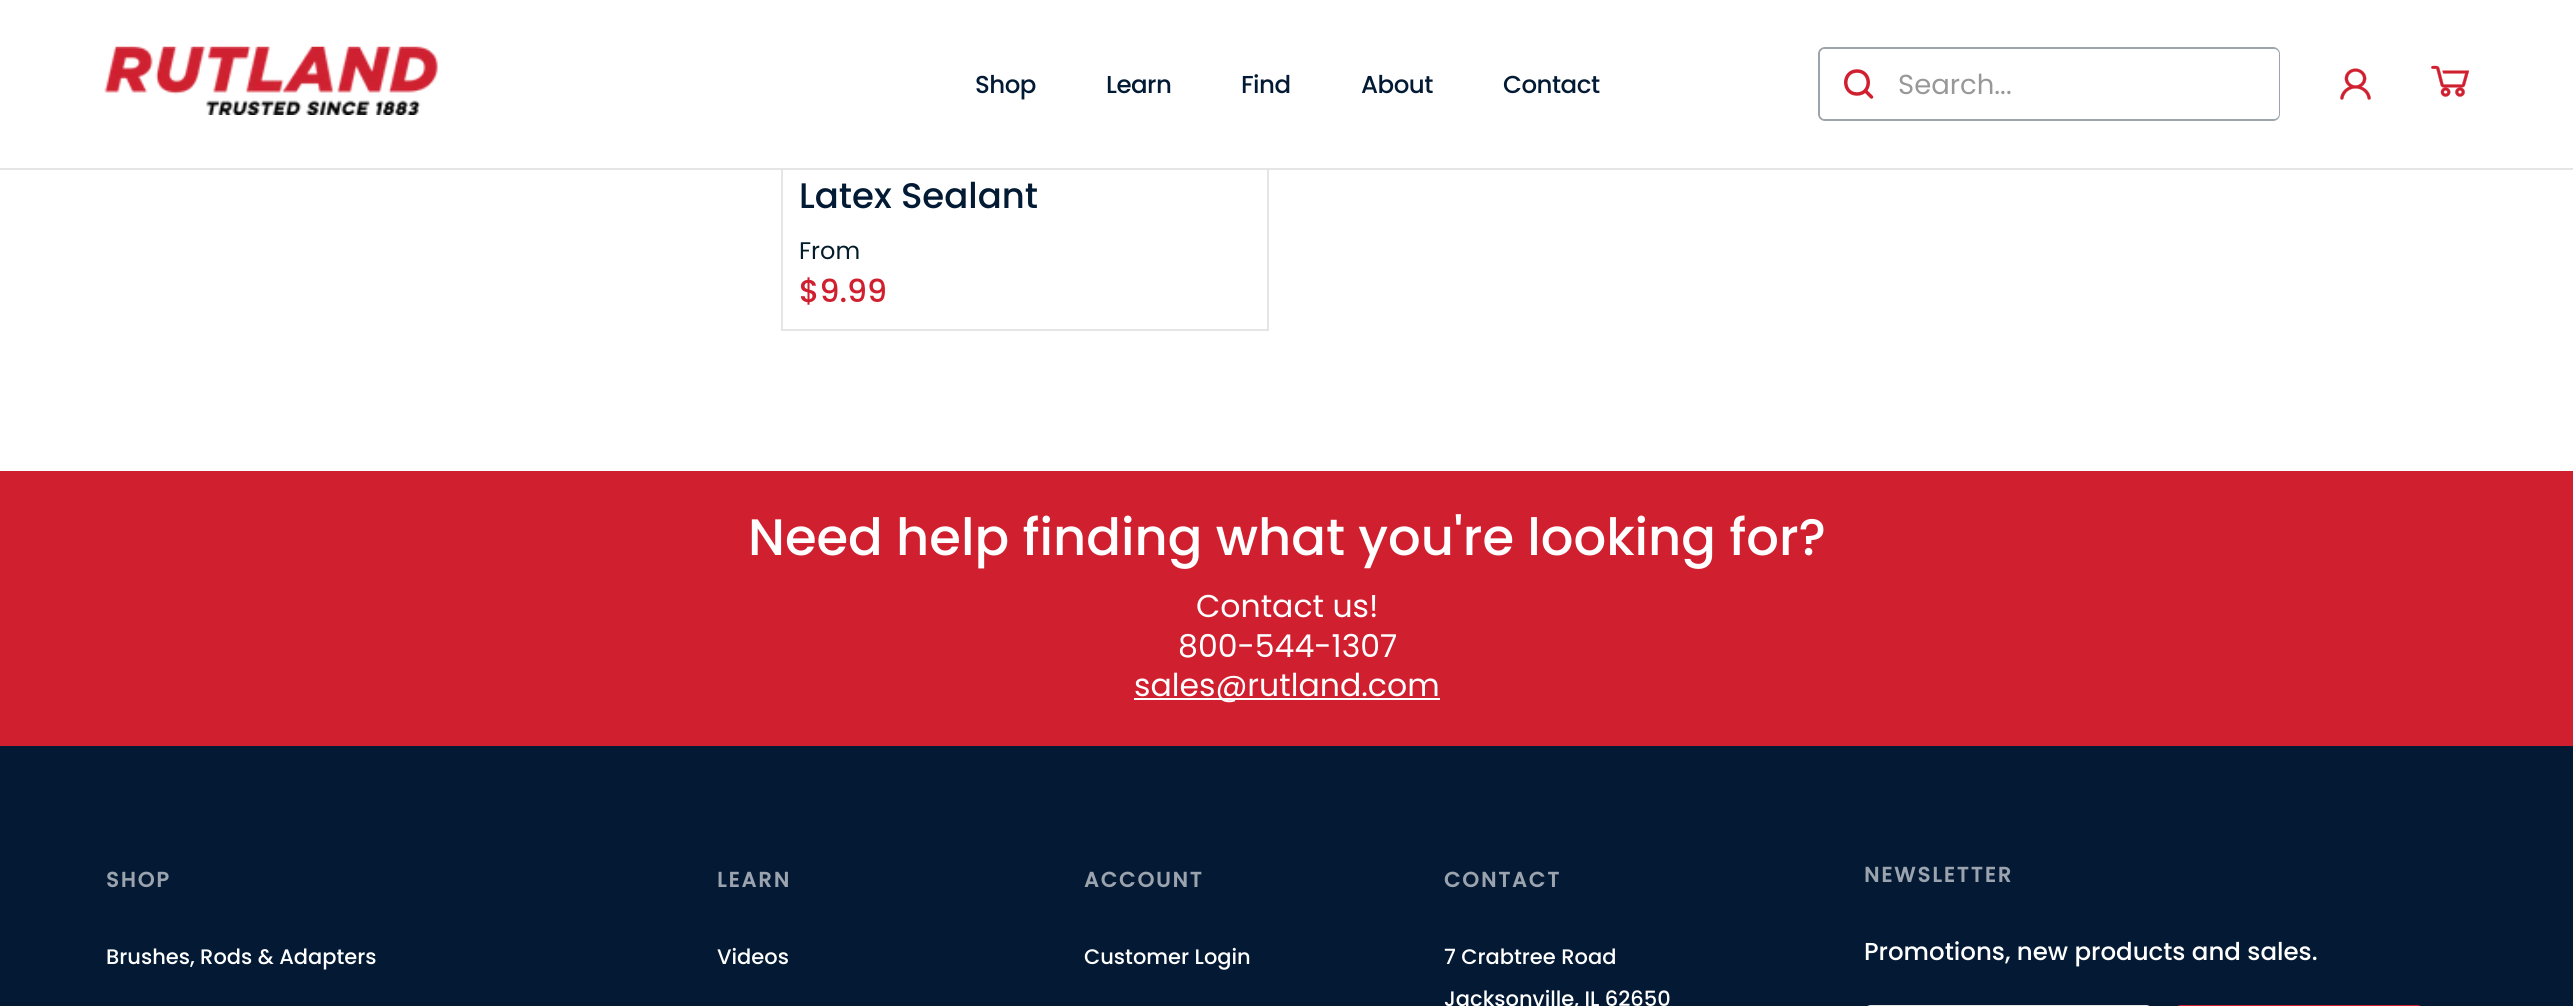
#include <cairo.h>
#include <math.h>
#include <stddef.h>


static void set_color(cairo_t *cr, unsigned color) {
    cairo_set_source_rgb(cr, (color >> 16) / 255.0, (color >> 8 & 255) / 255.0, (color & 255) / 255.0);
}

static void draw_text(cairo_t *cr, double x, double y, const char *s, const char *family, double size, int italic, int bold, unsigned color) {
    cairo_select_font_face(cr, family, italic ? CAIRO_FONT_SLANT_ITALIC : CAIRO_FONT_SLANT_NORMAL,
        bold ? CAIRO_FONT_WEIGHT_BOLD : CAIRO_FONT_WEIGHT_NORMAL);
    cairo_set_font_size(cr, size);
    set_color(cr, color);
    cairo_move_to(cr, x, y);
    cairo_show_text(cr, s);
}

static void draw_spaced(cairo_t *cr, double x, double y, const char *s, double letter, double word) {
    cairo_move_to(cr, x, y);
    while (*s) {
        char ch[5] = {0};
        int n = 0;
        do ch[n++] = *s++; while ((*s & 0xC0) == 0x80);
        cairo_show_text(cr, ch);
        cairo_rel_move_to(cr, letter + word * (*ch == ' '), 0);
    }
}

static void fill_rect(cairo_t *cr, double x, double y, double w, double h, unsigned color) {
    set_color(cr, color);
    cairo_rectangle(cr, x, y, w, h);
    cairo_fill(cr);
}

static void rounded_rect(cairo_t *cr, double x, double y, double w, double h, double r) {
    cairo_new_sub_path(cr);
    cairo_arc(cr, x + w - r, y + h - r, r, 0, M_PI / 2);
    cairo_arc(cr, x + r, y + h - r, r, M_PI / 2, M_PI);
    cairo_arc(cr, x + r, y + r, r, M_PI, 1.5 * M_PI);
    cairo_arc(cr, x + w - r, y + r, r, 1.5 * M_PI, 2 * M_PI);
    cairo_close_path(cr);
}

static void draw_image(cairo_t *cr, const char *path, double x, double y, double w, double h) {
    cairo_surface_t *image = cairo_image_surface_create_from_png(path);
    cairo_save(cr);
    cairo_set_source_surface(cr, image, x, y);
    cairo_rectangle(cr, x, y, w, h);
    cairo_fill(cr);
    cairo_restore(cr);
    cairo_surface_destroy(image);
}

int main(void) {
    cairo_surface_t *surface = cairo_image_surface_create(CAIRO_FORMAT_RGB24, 2573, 1006);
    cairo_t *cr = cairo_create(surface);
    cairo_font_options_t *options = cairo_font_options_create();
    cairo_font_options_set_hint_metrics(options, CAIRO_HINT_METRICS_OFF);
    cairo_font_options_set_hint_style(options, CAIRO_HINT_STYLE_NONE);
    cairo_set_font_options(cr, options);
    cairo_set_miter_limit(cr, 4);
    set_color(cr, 0xFFFFFF);
    cairo_paint(cr);
    cairo_rectangle(cr, 782, -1, 486, 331);
    set_color(cr, 0xE5E5E5);
    cairo_stroke(cr);
    fill_rect(cr, 781, 0, 488, 168, 0xFFFFFF);
    fill_rect(cr, 0, 168, 2573, 2, 0xE5E5E5);
    draw_image(cr, "assets/img1.png", 104, 46, 334, 69);
    cairo_select_font_face(cr, "Poppins Medium", CAIRO_FONT_SLANT_NORMAL, CAIRO_FONT_WEIGHT_NORMAL);
    cairo_set_font_size(cr, 24.5);
    set_color(cr, 0x031A34);
    draw_spaced(cr, 975, 93, "Shop", -0.5, 0);
    draw_spaced(cr, 1106, 93, "Learn", -0.5, 0);
    draw_spaced(cr, 1241, 93, "Find", -0.5, 0);
    draw_spaced(cr, 1361, 93, "About", -0.5, 0);
    draw_spaced(cr, 1503, 93, "Contact", -0.5, 0);
    rounded_rect(cr, 1819, 48, 460, 72, 6);
    set_color(cr, 0x9BA4AA);
    cairo_stroke(cr);
    set_color(cr, 0xFFFFFF);
    rounded_rect(cr, 1820, 49, 459, 70, 5);
    cairo_fill(cr);
    cairo_new_path(cr);
    cairo_move_to(cr, 1857, 94);
    cairo_curve_to(cr, 1872, 94, 1872, 71, 1857, 71);
    cairo_curve_to(cr, 1842, 71, 1842, 94, 1857, 94);
    cairo_close_path(cr);
    set_color(cr, 0xD01F2F);
    cairo_set_line_width(cr, 3.5);
    cairo_stroke(cr);
    cairo_new_path(cr);
    cairo_move_to(cr, 1871.5, 97);
    cairo_line_to(cr, 1865.5, 91);
    cairo_set_line_cap(cr, CAIRO_LINE_CAP_ROUND);
    cairo_stroke(cr);
    draw_text(cr, 1898, 94, "Search...", "Poppins", 27.5, 0, 0, 0x989898);
    draw_image(cr, "assets/img2.png", 2340, 68, 31, 32);
    draw_image(cr, "assets/img3.png", 2431, 65, 38, 32);
    draw_text(cr, 799, 208, "Latex Sealant", "Poppins Medium", 35.5, 0, 0, 0x031A34);
    draw_text(cr, 799, 259, "From", "Poppins", 24, 0, 0, 0x041B2A);
    draw_text(cr, 799, 302, "$9.99", "Poppins Medium", 31.5, 0, 0, 0xD02030);
    fill_rect(cr, 0, 471, 2573, 275, 0xD02030);
    draw_text(cr, 748, 555, "Need help finding what you're looking for?", "Poppins Medium", 51.2, 0, 0, 0xFFFFFF);
    draw_text(cr, 1196, 617, "Contact us!", "Poppins", 31.5, 0, 0, 0xFFFFFF);
    draw_text(cr, 1178, 657, "800-544-1307", "Poppins", 31.5, 0, 0, 0xFFFFFF);
    fill_rect(cr, 1134, 698, 306, 2, 0xFFFFFF);
    draw_text(cr, 1134, 696, "sales@rutland.com", "Poppins", 31.5, 0, 0, 0xFFFFFF);
    fill_rect(cr, 0, 746, 2573, 260, 0x041A34);
    cairo_select_font_face(cr, "Poppins", CAIRO_FONT_SLANT_NORMAL, CAIRO_FONT_WEIGHT_BOLD);
    cairo_set_font_size(cr, 21);
    set_color(cr, 0x9BA3AE);
    draw_spaced(cr, 106, 887, "SHOP", 2.1, 0);
    draw_text(cr, 106, 964, "Brushes, Rods & Adapters", "Poppins Medium", 21, 0, 0, 0xFFFFFF);
    cairo_select_font_face(cr, "Poppins", CAIRO_FONT_SLANT_NORMAL, CAIRO_FONT_WEIGHT_BOLD);
    set_color(cr, 0x9BA3AE);
    draw_spaced(cr, 717, 887, "LEARN", 2.1, 0);
    draw_text(cr, 717, 964, "Videos", "Poppins Medium", 21, 0, 0, 0xFFFFFF);
    cairo_select_font_face(cr, "Poppins", CAIRO_FONT_SLANT_NORMAL, CAIRO_FONT_WEIGHT_BOLD);
    set_color(cr, 0x9BA3AE);
    draw_spaced(cr, 1084, 887, "ACCOUNT", 2.1, 0);
    draw_text(cr, 1084, 964, "Customer Login", "Poppins Medium", 21, 0, 0, 0xFFFFFF);
    cairo_select_font_face(cr, "Poppins", CAIRO_FONT_SLANT_NORMAL, CAIRO_FONT_WEIGHT_BOLD);
    set_color(cr, 0x9BA3AE);
    draw_spaced(cr, 1444, 887, "CONTACT", 2.1, 0);
    draw_text(cr, 1444, 964, "7 Crabtree Road", "Poppins Medium", 21, 0, 0, 0xFFFFFF);
    draw_text(cr, 1444, 1006, "Jacksonville, IL 62650", "Poppins Medium", 21, 0, 0, 0xFFFFFF);
    cairo_select_font_face(cr, "Poppins", CAIRO_FONT_SLANT_NORMAL, CAIRO_FONT_WEIGHT_BOLD);
    set_color(cr, 0x9BA3AE);
    draw_spaced(cr, 1864, 882, "NEWSLETTER", 2.1, 0);
    draw_text(cr, 1864, 960, "Promotions, new products and sales.", "Poppins Medium", 24.5, 0, 0, 0xFFFFFF);
    rounded_rect(cr, 1865, 1006, 287, 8, 6);
    set_color(cr, 0xE5E5E5);
    cairo_set_line_width(cr, 2);
    cairo_set_line_cap(cr, CAIRO_LINE_CAP_BUTT);
    cairo_stroke(cr);
    rounded_rect(cr, 2175, 1006, 248, 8, 6);
    set_color(cr, 0xD02030);
    cairo_stroke(cr);
    cairo_surface_write_to_png(surface, "output.png");
    cairo_font_options_destroy(options);
    cairo_destroy(cr);
    cairo_surface_destroy(surface);
    return 0;
}
